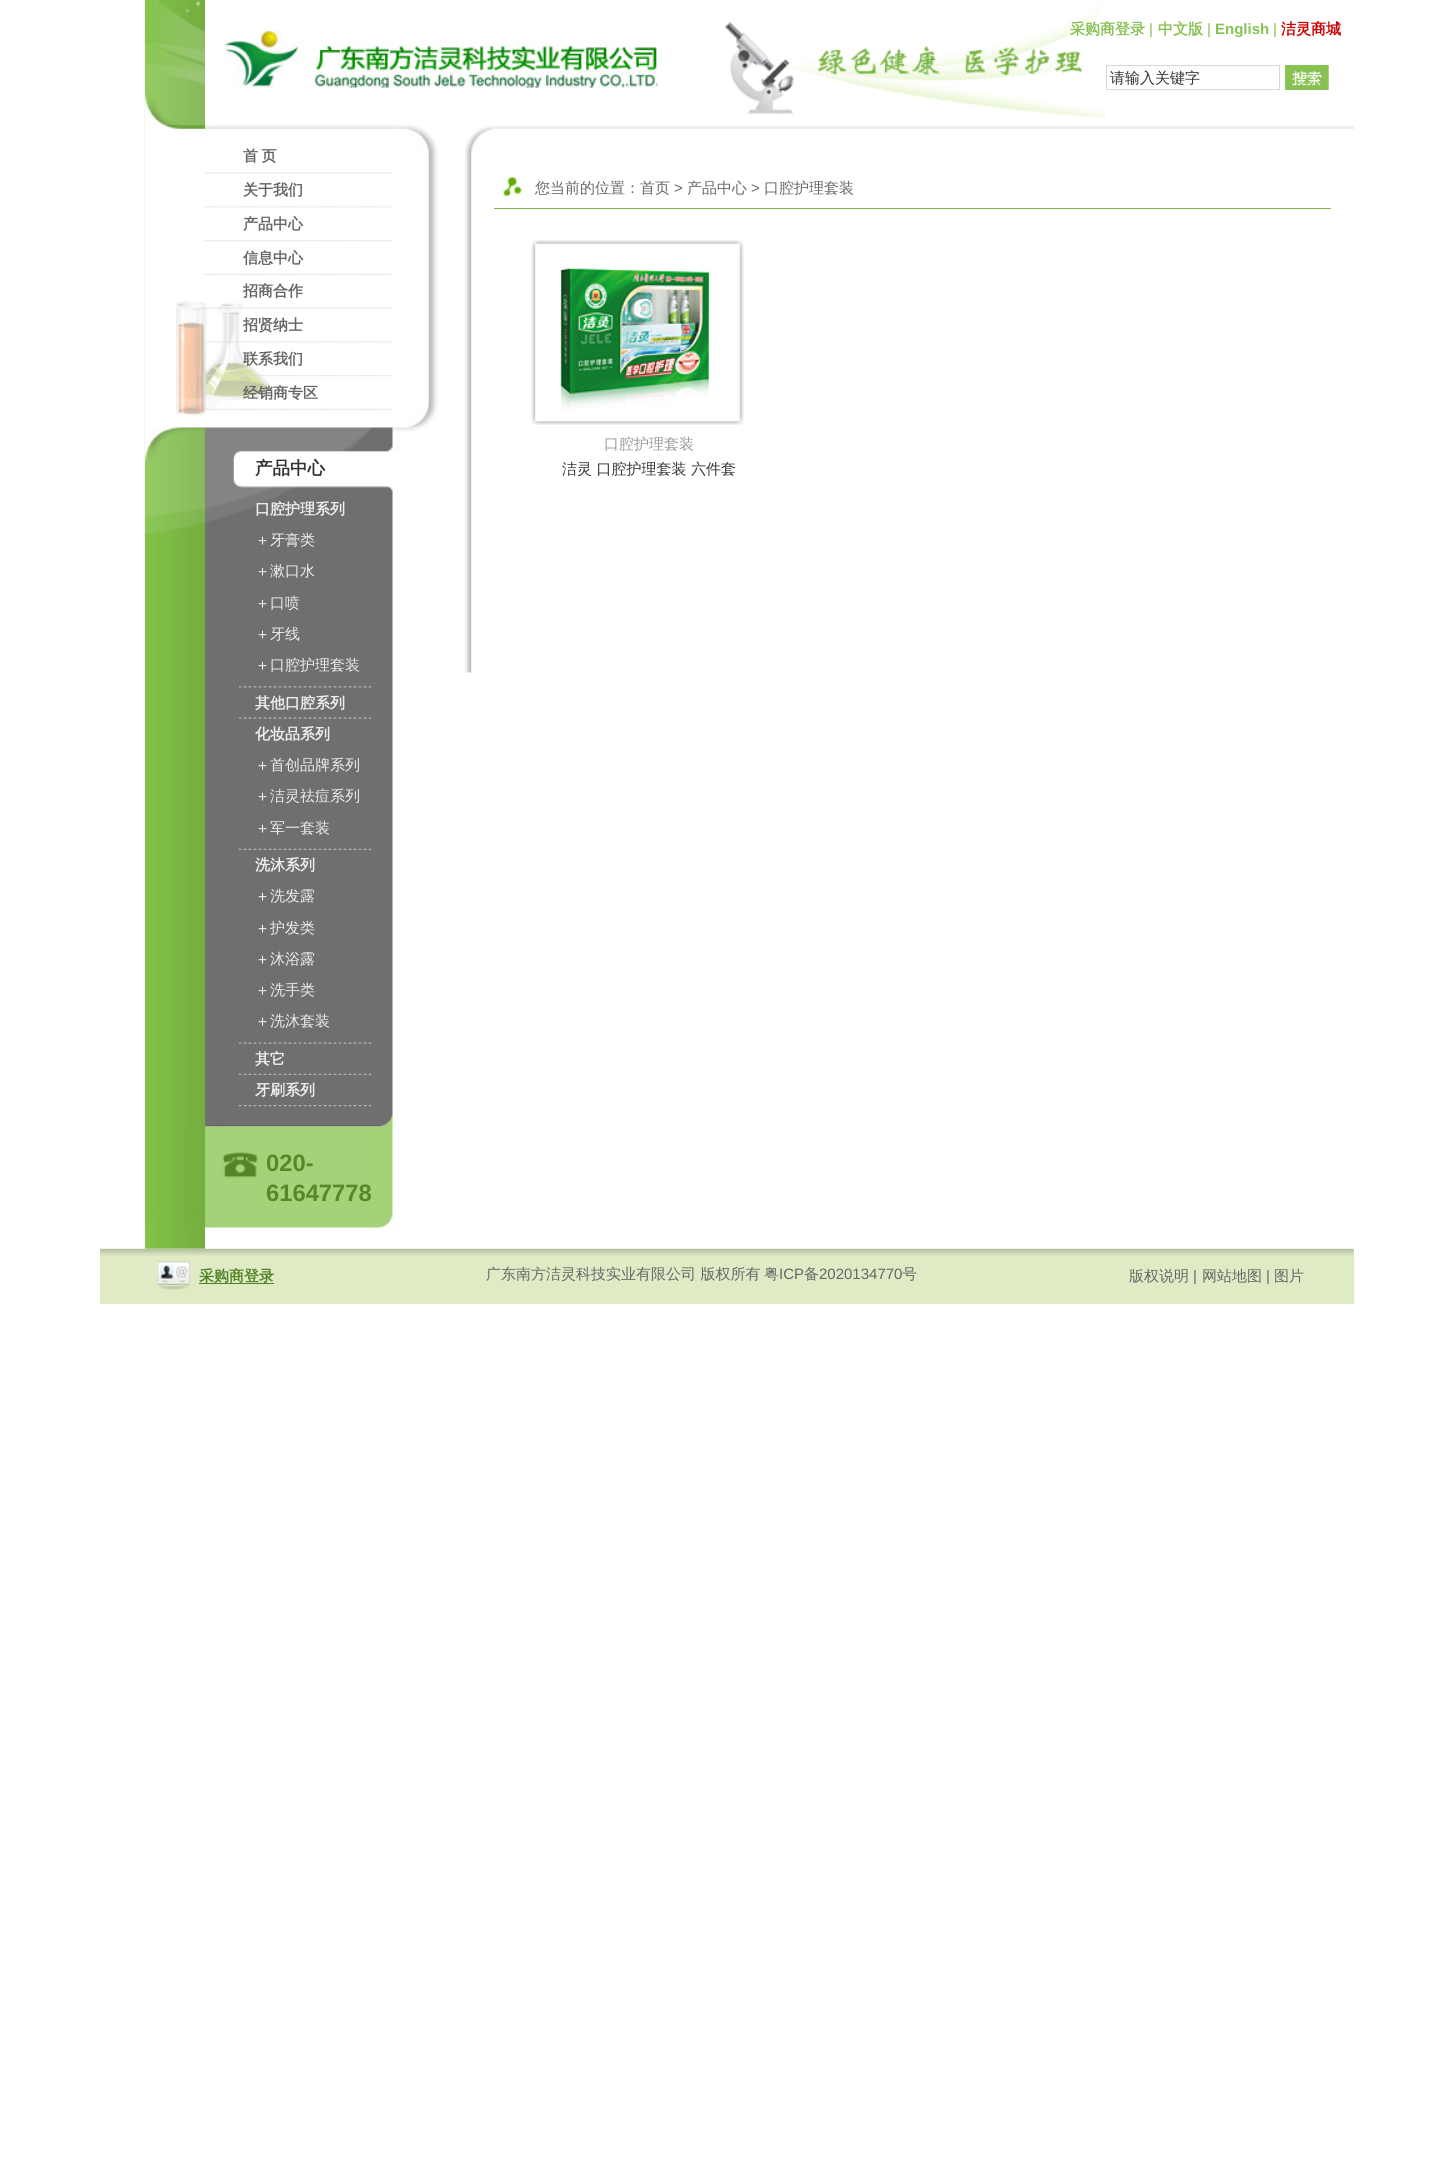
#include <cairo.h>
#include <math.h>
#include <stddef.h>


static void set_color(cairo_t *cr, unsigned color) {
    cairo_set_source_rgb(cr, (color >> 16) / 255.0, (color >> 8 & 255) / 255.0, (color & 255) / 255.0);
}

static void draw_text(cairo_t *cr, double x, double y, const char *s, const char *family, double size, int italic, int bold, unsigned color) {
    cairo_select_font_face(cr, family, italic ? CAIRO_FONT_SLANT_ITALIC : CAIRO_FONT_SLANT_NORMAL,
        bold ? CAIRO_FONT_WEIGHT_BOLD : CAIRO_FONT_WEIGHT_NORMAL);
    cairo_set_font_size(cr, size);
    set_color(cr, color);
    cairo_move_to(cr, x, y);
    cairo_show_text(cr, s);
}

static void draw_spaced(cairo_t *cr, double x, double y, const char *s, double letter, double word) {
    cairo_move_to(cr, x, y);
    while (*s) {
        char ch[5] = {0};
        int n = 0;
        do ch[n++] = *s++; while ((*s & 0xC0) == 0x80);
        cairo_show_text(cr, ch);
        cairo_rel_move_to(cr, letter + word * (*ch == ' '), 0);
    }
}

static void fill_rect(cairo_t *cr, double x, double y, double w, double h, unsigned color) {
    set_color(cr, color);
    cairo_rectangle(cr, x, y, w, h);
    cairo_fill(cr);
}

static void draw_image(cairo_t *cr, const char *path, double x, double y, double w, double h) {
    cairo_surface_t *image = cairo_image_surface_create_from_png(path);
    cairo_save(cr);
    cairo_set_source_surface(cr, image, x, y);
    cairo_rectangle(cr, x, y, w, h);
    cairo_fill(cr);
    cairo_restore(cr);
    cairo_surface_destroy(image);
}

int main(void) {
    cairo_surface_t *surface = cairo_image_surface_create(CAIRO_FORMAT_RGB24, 1453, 2172);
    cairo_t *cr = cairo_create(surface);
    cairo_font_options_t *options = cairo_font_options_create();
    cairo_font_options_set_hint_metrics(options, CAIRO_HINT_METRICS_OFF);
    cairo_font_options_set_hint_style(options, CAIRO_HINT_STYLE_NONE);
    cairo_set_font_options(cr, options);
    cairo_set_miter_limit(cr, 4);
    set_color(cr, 0xFFFFFF);
    cairo_paint(cr);
    draw_image(cr, "assets/img1.png", 144, 0, 61, 1249);
    draw_image(cr, "assets/img2.png", 725, 4, 380, 115);
    draw_image(cr, "assets/img3.png", 145, 0, 60, 125);
    draw_image(cr, "assets/img4.png", 225, 31, 433, 57);
    draw_text(cr, 1070, 34, "采购商登录", "WenQuanYi Zen Hei", 15, 0, 1, 0x87C152);
    draw_text(cr, 1149, 34, "|", "Liberation Sans", 15, 0, 0, 0x87C152);
    draw_text(cr, 1158, 34, "中文版", "WenQuanYi Zen Hei", 15, 0, 1, 0x87C152);
    draw_text(cr, 1207, 34, "|", "Liberation Sans", 15, 0, 0, 0x87C152);
    draw_text(cr, 1215, 34, "English", "Liberation Sans", 15, 0, 1, 0x87C152);
    draw_text(cr, 1273, 34, "|", "Liberation Sans", 15, 0, 0, 0x87C152);
    draw_text(cr, 1281, 34, "洁灵商城", "WenQuanYi Zen Hei", 15, 0, 1, 0xCC0000);
    cairo_rectangle(cr, 1106.5, 65.5, 173, 24);
    set_color(cr, 0xD8D8D8);
    cairo_set_line_width(cr, 1);
    cairo_stroke(cr);
    draw_text(cr, 1110, 83, "请输入关键字", "WenQuanYi Zen Hei Medium", 15, 0, 0, 0x333333);
    draw_image(cr, "assets/img5.png", 1285, 65, 44, 25);
    fill_rect(cr, 145, 125, 60, 303, 0xFFFFFF);
    draw_image(cr, "assets/img6.png", 392, 125, 46, 303);
    draw_image(cr, "assets/img7.png", 151, 125, 242, 5);
    draw_image(cr, "assets/img8.png", 165, 301, 107, 127);
    draw_image(cr, "assets/img9.png", 205, 172, 188, 2);
    cairo_select_font_face(cr, "WenQuanYi Zen Hei", CAIRO_FONT_SLANT_NORMAL, CAIRO_FONT_WEIGHT_BOLD);
    set_color(cr, 0x666666);
    draw_spaced(cr, 243, 161, "首 页", 0, -1);
    draw_image(cr, "assets/img10.png", 205, 206, 188, 2);
    draw_text(cr, 243, 195, "关于我们", "WenQuanYi Zen Hei", 15, 0, 1, 0x666666);
    draw_image(cr, "assets/img11.png", 205, 240, 188, 2);
    draw_text(cr, 243, 229, "产品中心", "WenQuanYi Zen Hei", 15, 0, 1, 0x666666);
    draw_image(cr, "assets/img12.png", 205, 273, 188, 2);
    draw_text(cr, 243, 263, "信息中心", "WenQuanYi Zen Hei", 15, 0, 1, 0x666666);
    draw_image(cr, "assets/img13.png", 205, 307, 188, 2);
    draw_text(cr, 243, 296, "招商合作", "WenQuanYi Zen Hei", 15, 0, 1, 0x666666);
    draw_image(cr, "assets/img14.png", 205, 341, 188, 2);
    draw_text(cr, 243, 330, "招贤纳士", "WenQuanYi Zen Hei", 15, 0, 1, 0x666666);
    draw_image(cr, "assets/img15.png", 205, 375, 188, 2);
    draw_text(cr, 243, 364, "联系我们", "WenQuanYi Zen Hei", 15, 0, 1, 0x666666);
    draw_image(cr, "assets/img16.png", 205, 408, 188, 2);
    draw_text(cr, 243, 398, "经销商专区", "WenQuanYi Zen Hei", 15, 0, 1, 0x666666);
    draw_image(cr, "assets/img23.png", 145, 1126, 248, 102);
    draw_image(cr, "assets/img17.png", 145, 427, 277, 700);
    draw_text(cr, 255, 474, "产品中心", "WenQuanYi Zen Hei", 17.5, 0, 1, 0x333333);
    draw_image(cr, "assets/img18.png", 239, 686, 132, 2);
    draw_text(cr, 255, 514, "口腔护理系列", "WenQuanYi Zen Hei", 15, 0, 1, 0xEDEDED);
    draw_text(cr, 255, 545, "＋", "WenQuanYi Zen Hei Medium", 15, 0, 0, 0xFFFFFF);
    draw_text(cr, 270, 545, "牙膏类", "WenQuanYi Zen Hei Medium", 15, 0, 0, 0xEDEDED);
    draw_text(cr, 255, 576, "＋", "WenQuanYi Zen Hei Medium", 15, 0, 0, 0xFFFFFF);
    draw_text(cr, 270, 576, "漱口水", "WenQuanYi Zen Hei Medium", 15, 0, 0, 0xEDEDED);
    draw_text(cr, 255, 608, "＋", "WenQuanYi Zen Hei Medium", 15, 0, 0, 0xFFFFFF);
    draw_text(cr, 270, 608, "口喷", "WenQuanYi Zen Hei Medium", 15, 0, 0, 0xEDEDED);
    draw_text(cr, 255, 639, "＋", "WenQuanYi Zen Hei Medium", 15, 0, 0, 0xFFFFFF);
    draw_text(cr, 270, 639, "牙线", "WenQuanYi Zen Hei Medium", 15, 0, 0, 0xEDEDED);
    draw_text(cr, 255, 670, "＋", "WenQuanYi Zen Hei Medium", 15, 0, 0, 0xFFFFFF);
    draw_text(cr, 270, 670, "口腔护理套装", "WenQuanYi Zen Hei Medium", 15, 0, 0, 0xEDEDED);
    draw_image(cr, "assets/img19.png", 239, 717, 132, 2);
    draw_text(cr, 255, 708, "其他口腔系列", "WenQuanYi Zen Hei", 15, 0, 1, 0xEDEDED);
    draw_image(cr, "assets/img20.png", 238, 848, 134, 2);
    draw_text(cr, 255, 739, "化妆品系列", "WenQuanYi Zen Hei", 15, 0, 1, 0xEDEDED);
    draw_text(cr, 255, 770, "＋", "WenQuanYi Zen Hei Medium", 15, 0, 0, 0xFFFFFF);
    draw_text(cr, 270, 770, "首创品牌系列", "WenQuanYi Zen Hei Medium", 15, 0, 0, 0xEDEDED);
    draw_text(cr, 255, 801, "＋", "WenQuanYi Zen Hei Medium", 15, 0, 0, 0xFFFFFF);
    draw_text(cr, 270, 801, "洁灵祛痘系列", "WenQuanYi Zen Hei Medium", 15, 0, 0, 0xEDEDED);
    draw_text(cr, 255, 833, "＋", "WenQuanYi Zen Hei Medium", 15, 0, 0, 0xFFFFFF);
    draw_text(cr, 270, 833, "军一套装", "WenQuanYi Zen Hei Medium", 15, 0, 0, 0xEDEDED);
    draw_image(cr, "assets/img19.png", 239, 1042, 132, 2);
    draw_text(cr, 255, 870, "洗沐系列", "WenQuanYi Zen Hei", 15, 0, 1, 0xEDEDED);
    draw_text(cr, 255, 901, "＋", "WenQuanYi Zen Hei Medium", 15, 0, 0, 0xFFFFFF);
    draw_text(cr, 270, 901, "洗发露", "WenQuanYi Zen Hei Medium", 15, 0, 0, 0xEDEDED);
    draw_text(cr, 255, 933, "＋", "WenQuanYi Zen Hei Medium", 15, 0, 0, 0xFFFFFF);
    draw_text(cr, 270, 933, "护发类", "WenQuanYi Zen Hei Medium", 15, 0, 0, 0xEDEDED);
    draw_text(cr, 255, 964, "＋", "WenQuanYi Zen Hei Medium", 15, 0, 0, 0xFFFFFF);
    draw_text(cr, 270, 964, "沐浴露", "WenQuanYi Zen Hei Medium", 15, 0, 0, 0xEDEDED);
    draw_text(cr, 255, 995, "＋", "WenQuanYi Zen Hei Medium", 15, 0, 0, 0xFFFFFF);
    draw_text(cr, 270, 995, "洗手类", "WenQuanYi Zen Hei Medium", 15, 0, 0, 0xEDEDED);
    draw_text(cr, 255, 1026, "＋", "WenQuanYi Zen Hei Medium", 15, 0, 0, 0xFFFFFF);
    draw_text(cr, 270, 1026, "洗沐套装", "WenQuanYi Zen Hei Medium", 15, 0, 0, 0xEDEDED);
    draw_image(cr, "assets/img20.png", 238, 1073, 134, 2);
    draw_text(cr, 255, 1064, "其它", "WenQuanYi Zen Hei", 15, 0, 1, 0xEDEDED);
    draw_image(cr, "assets/img21.png", 238, 1105, 134, 2);
    draw_text(cr, 255, 1095, "牙刷系列", "WenQuanYi Zen Hei", 15, 0, 1, 0xEDEDED);
    draw_image(cr, "assets/img22.png", 200, 1112, 200, 15);
    draw_text(cr, 266, 1171, "020-", "Liberation Sans", 23.75, 0, 1, 0x568829);
    draw_text(cr, 266, 1201, "61647778", "Liberation Sans", 23.75, 0, 1, 0x568829);
    draw_image(cr, "assets/img24.png", 464, 153, 8, 520);
    draw_image(cr, "assets/img25.png", 464, 125, 30, 29);
    fill_rect(cr, 494, 126, 860, 3, 0xECECEC);
    draw_image(cr, "assets/img26.png", 502, 177, 20, 20);
    fill_rect(cr, 494, 208, 837, 1, 0x7DB546);
    draw_text(cr, 535, 193, "您当前的位置：首页", "WenQuanYi Zen Hei Medium", 15, 0, 0, 0x666666);
    draw_text(cr, 674, 193, ">", "Liberation Sans", 15, 0, 0, 0x666666);
    draw_text(cr, 687, 193, "产品中心", "WenQuanYi Zen Hei Medium", 15, 0, 0, 0x666666);
    draw_text(cr, 751, 193, ">", "Liberation Sans", 15, 0, 0, 0x666666);
    draw_text(cr, 764, 193, "口腔护理套装", "WenQuanYi Zen Hei Medium", 15, 0, 0, 0x666666);
    draw_image(cr, "assets/img27.png", 531, 240, 213, 185);
    draw_image(cr, "assets/img28.png", 559, 268, 152, 142);
    draw_text(cr, 604, 449, "口腔护理套装", "WenQuanYi Zen Hei Medium", 15, 0, 0, 0x999999);
    draw_text(cr, 562, 474, "洁灵 口腔护理套装 六件套", "WenQuanYi Zen Hei Medium", 15, 0, 0, 0x333333);
    fill_rect(cr, 100, 1249, 1254, 55, 0xDFEBC5);
    draw_image(cr, "assets/img29.png", 100, 1248, 1254, 8);
    draw_text(cr, 486, 1279, "广东南方洁灵科技实业有限公司 版权所有", "WenQuanYi Zen Hei Medium", 15, 0, 0, 0x666666);
    draw_text(cr, 764, 1279, "粤", "WenQuanYi Zen Hei Medium", 15, 0, 0, 0x666666);
    draw_text(cr, 779, 1279, "ICP", "Liberation Sans", 15, 0, 0, 0x666666);
    draw_text(cr, 804, 1279, "备", "WenQuanYi Zen Hei Medium", 15, 0, 0, 0x666666);
    draw_text(cr, 819, 1279, "2020134770", "Liberation Sans", 15, 0, 0, 0x666666);
    draw_text(cr, 902, 1279, "号", "WenQuanYi Zen Hei Medium", 15, 0, 0, 0x666666);
    draw_image(cr, "assets/img30.png", 157, 1261, 33, 29);
    fill_rect(cr, 199, 1283, 75, 1, 0x518226);
    draw_text(cr, 199, 1281, "采购商登录", "WenQuanYi Zen Hei", 15, 0, 1, 0x518226);
    draw_text(cr, 1129, 1281, "版权说明", "WenQuanYi Zen Hei Medium", 15, 0, 0, 0x666666);
    draw_text(cr, 1193, 1281, "|", "Liberation Sans", 15, 0, 0, 0x666666);
    draw_text(cr, 1202, 1281, "网站地图", "WenQuanYi Zen Hei Medium", 15, 0, 0, 0x666666);
    draw_text(cr, 1266, 1281, "|", "Liberation Sans", 15, 0, 0, 0x666666);
    draw_text(cr, 1274, 1281, "图片", "WenQuanYi Zen Hei Medium", 15, 0, 0, 0x666666);
    cairo_surface_write_to_png(surface, "output.png");
    cairo_font_options_destroy(options);
    cairo_destroy(cr);
    cairo_surface_destroy(surface);
    return 0;
}
